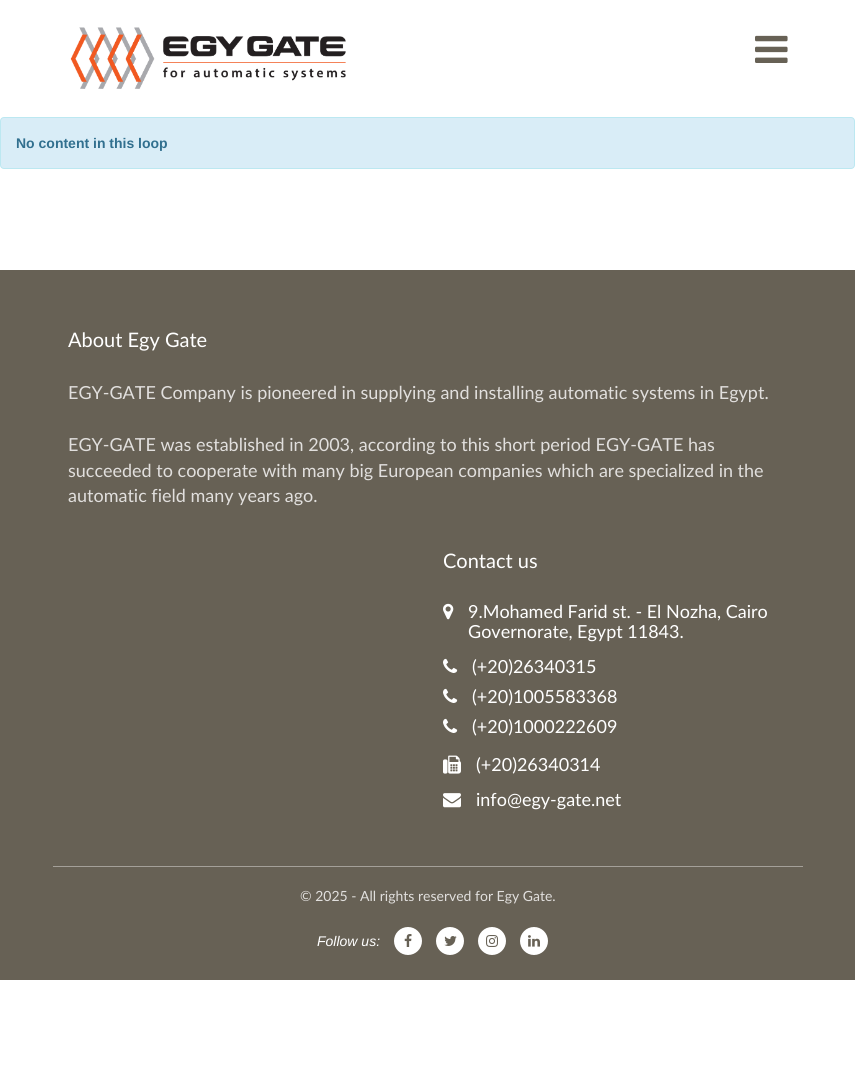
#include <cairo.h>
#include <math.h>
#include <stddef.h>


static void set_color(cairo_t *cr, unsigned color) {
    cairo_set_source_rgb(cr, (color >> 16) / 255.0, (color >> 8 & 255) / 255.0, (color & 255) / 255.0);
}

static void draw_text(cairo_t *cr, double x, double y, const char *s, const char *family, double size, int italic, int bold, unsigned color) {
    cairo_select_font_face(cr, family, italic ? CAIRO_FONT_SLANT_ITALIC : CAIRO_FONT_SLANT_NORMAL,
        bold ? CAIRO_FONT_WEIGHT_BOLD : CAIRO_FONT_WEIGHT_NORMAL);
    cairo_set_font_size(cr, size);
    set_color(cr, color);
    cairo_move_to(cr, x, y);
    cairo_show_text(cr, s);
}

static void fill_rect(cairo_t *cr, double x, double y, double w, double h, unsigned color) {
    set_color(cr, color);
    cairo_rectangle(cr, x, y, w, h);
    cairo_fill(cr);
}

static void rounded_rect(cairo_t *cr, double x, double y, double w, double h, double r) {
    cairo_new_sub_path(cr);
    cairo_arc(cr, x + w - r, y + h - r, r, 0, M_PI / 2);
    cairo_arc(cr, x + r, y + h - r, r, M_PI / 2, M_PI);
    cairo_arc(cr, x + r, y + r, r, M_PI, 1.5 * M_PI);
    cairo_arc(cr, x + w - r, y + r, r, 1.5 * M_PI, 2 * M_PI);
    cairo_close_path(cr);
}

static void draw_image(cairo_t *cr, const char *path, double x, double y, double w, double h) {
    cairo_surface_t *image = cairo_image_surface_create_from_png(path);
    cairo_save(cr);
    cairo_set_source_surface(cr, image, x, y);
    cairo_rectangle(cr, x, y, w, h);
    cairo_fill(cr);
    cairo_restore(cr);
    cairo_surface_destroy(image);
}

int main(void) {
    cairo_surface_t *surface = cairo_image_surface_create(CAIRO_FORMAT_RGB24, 855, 1086);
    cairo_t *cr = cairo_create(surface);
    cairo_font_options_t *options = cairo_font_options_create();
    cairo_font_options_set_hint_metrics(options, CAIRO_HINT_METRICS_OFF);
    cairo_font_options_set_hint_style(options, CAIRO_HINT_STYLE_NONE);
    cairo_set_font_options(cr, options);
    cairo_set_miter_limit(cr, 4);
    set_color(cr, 0xFFFFFF);
    cairo_paint(cr);
    draw_image(cr, "assets/img1.png", 70, 27, 276, 62);
    draw_image(cr, "assets/img2.png", 755, 35, 33, 28);
    set_color(cr, 0xD9EDF7);
    rounded_rect(cr, 0.5, 117.5, 854, 51, 3.5);
    cairo_fill_preserve(cr);
    set_color(cr, 0xBCE8F1);
    cairo_set_line_width(cr, 1);
    cairo_stroke(cr);
    draw_text(cr, 16, 148, "No content in this loop", "Liberation Sans", 14, 0, 1, 0x31708F);
    fill_rect(cr, 0, 270, 855, 710, 0x676155);
    draw_text(cr, 68, 347, "About Egy Gate", "Lato", 20, 0, 0, 0xFFFFFF);
    draw_text(cr, 68, 399, "EGY-GATE Company is pioneered in supplying and installing automatic systems in Egypt.", "Lato", 18, 0, 0, 0xE1DFDD);
    draw_text(cr, 68, 451, "EGY-GATE was established in 2003, according to this short period EGY-GATE has", "Lato", 18, 0, 0, 0xE1DFDD);
    draw_text(cr, 68, 477, "succeeded to cooperate with many big European companies which are specialized in the", "Lato", 18, 0, 0, 0xE1DFDD);
    draw_text(cr, 68, 502, "automatic field many years ago.", "Lato", 18, 0, 0, 0xE1DFDD);
    draw_text(cr, 443, 568, "Contact us", "Lato", 20, 0, 0, 0xFFFFFF);
    draw_image(cr, "assets/img3.png", 443, 603, 11, 17);
    draw_text(cr, 468, 618, "9.Mohamed Farid st. - El Nozha, Cairo", "Lato", 18, 0, 0, 0xFFFFFF);
    draw_text(cr, 468, 638, "Governorate, Egypt 11843.", "Lato", 18, 0, 0, 0xFFFFFF);
    draw_image(cr, "assets/img4.png", 443, 658, 15, 15);
    draw_text(cr, 472, 673, "(+20)26340315", "Lato", 18, 0, 0, 0xFFFFFF);
    draw_image(cr, "assets/img4.png", 443, 688, 15, 15);
    draw_text(cr, 472, 703, "(+20)1005583368", "Lato", 18, 0, 0, 0xFFFFFF);
    draw_image(cr, "assets/img4.png", 443, 718, 15, 15);
    draw_text(cr, 472, 733, "(+20)1000222609", "Lato", 18, 0, 0, 0xFFFFFF);
    draw_image(cr, "assets/img5.png", 443, 755, 18, 19);
    draw_text(cr, 476, 771, "(+20)26340314", "Lato", 18, 0, 0, 0xFFFFFF);
    draw_image(cr, "assets/img6.png", 443, 793, 18, 15);
    draw_text(cr, 476, 806, "info@egy-gate.net", "Lato", 18, 0, 0, 0xFFFFFF);
    fill_rect(cr, 53, 866, 750, 1, 0xA4A099);
    draw_text(cr, 300, 901, "© 2025 - All rights reserved for Egy Gate.", "Lato", 14, 0, 0, 0xE1DFDD);
    draw_text(cr, 317, 946, "Follow us:", "Liberation Sans", 14, 1, 0, 0xFFFFFF);
    cairo_new_path(cr);
    cairo_arc(cr, 408, 941, 14, 0, 2 * M_PI);
    cairo_fill(cr);
    draw_image(cr, "assets/img7.png", 404, 934, 8, 13);
    cairo_arc(cr, 450, 941, 14, 0, 2 * M_PI);
    cairo_fill(cr);
    draw_image(cr, "assets/img8.png", 444, 936, 13, 10);
    cairo_arc(cr, 492, 941, 14, 0, 2 * M_PI);
    cairo_fill(cr);
    draw_image(cr, "assets/img9.png", 486, 935, 12, 12);
    cairo_arc(cr, 534, 941, 14, 0, 2 * M_PI);
    cairo_fill(cr);
    draw_image(cr, "assets/img10.png", 528, 935, 12, 12);
    cairo_surface_write_to_png(surface, "output.png");
    cairo_font_options_destroy(options);
    cairo_destroy(cr);
    cairo_surface_destroy(surface);
    return 0;
}
